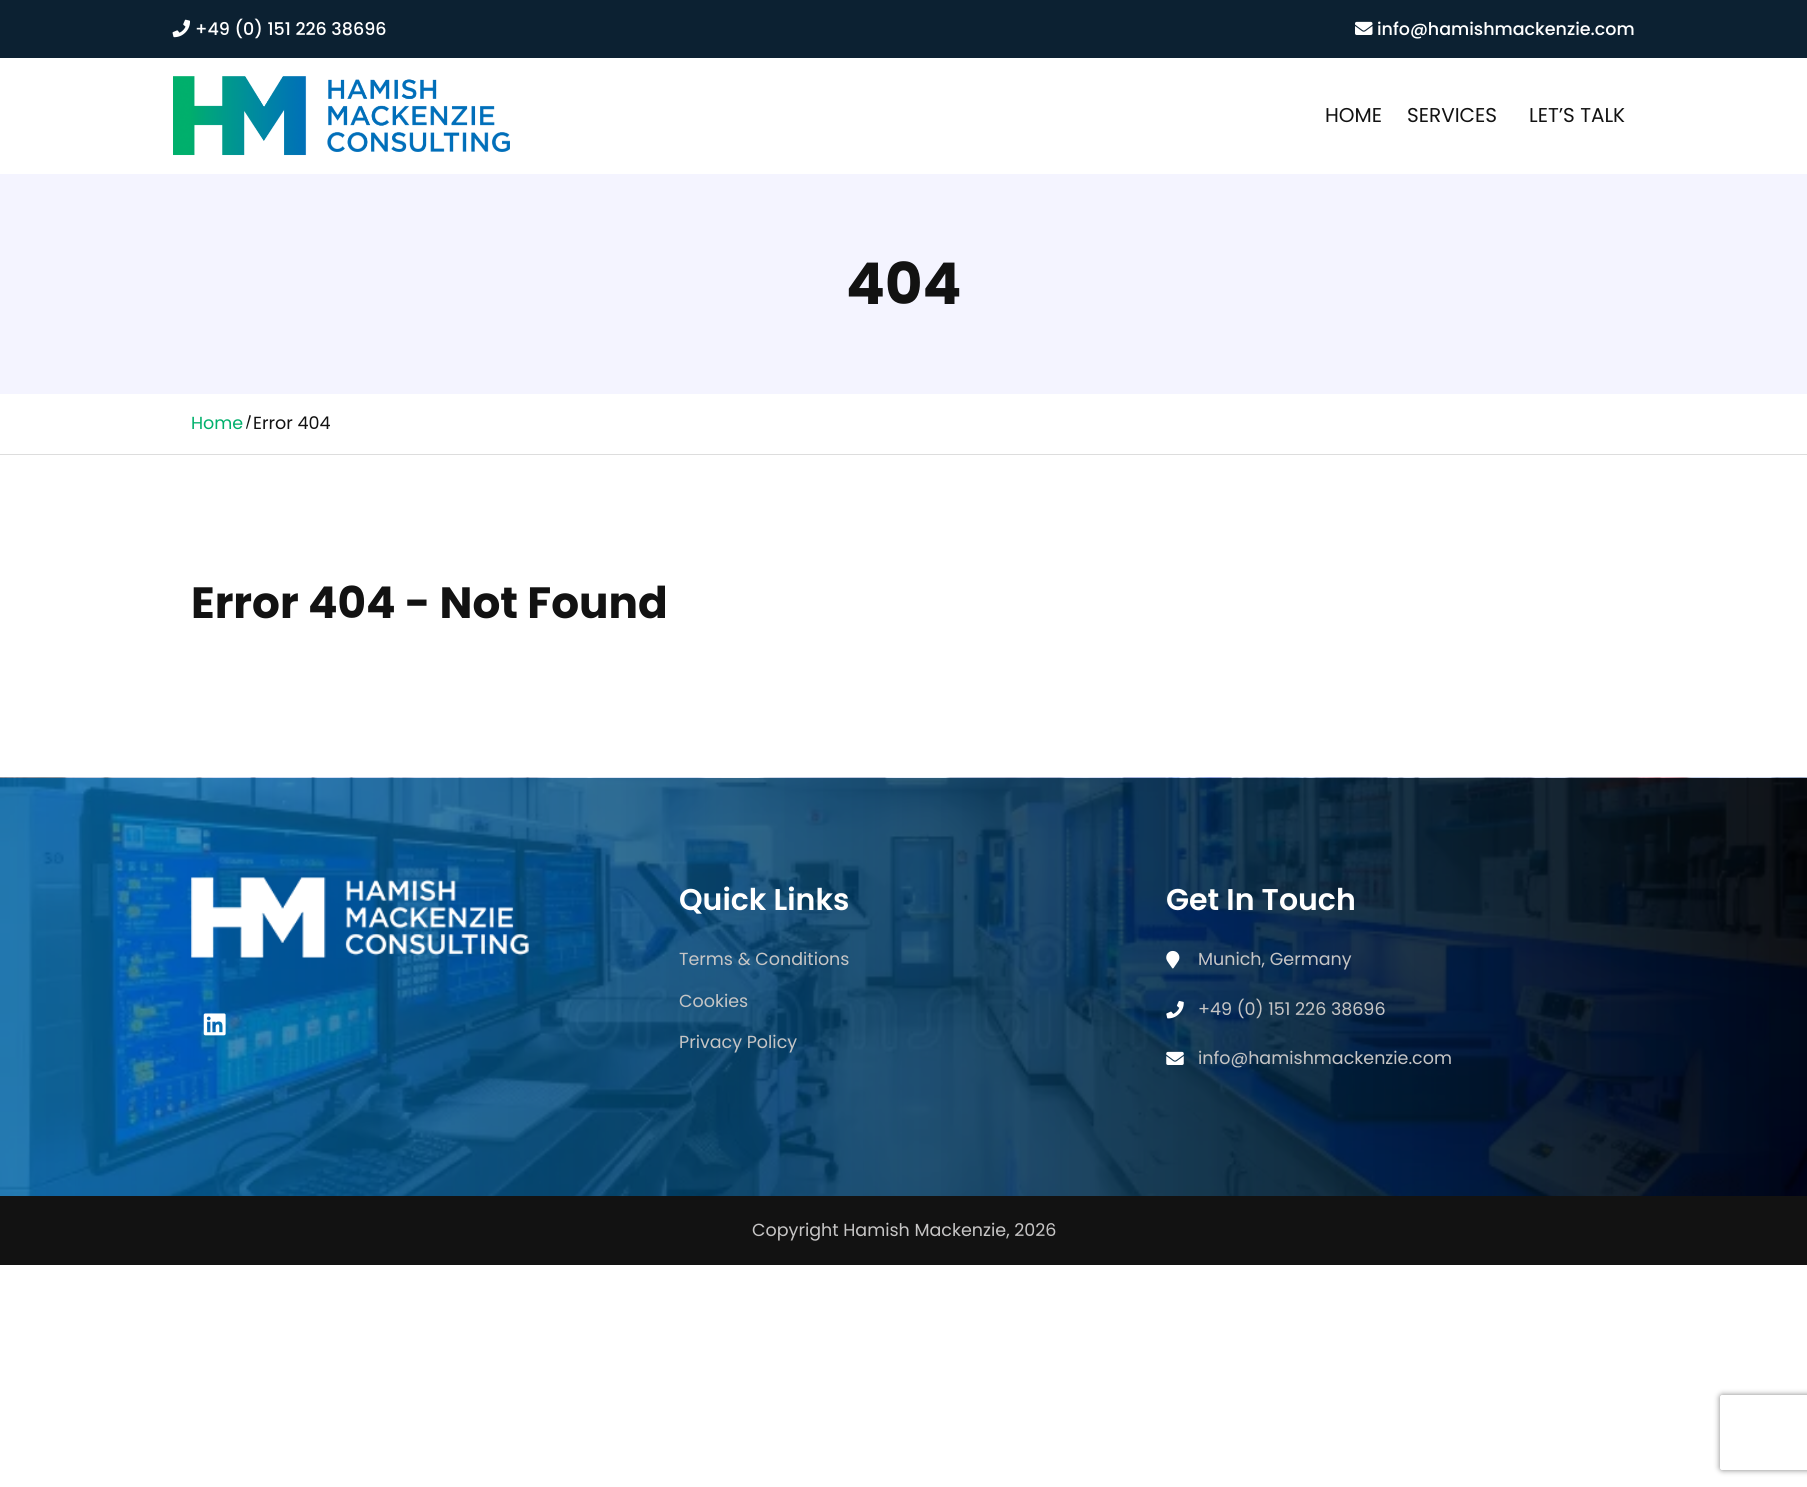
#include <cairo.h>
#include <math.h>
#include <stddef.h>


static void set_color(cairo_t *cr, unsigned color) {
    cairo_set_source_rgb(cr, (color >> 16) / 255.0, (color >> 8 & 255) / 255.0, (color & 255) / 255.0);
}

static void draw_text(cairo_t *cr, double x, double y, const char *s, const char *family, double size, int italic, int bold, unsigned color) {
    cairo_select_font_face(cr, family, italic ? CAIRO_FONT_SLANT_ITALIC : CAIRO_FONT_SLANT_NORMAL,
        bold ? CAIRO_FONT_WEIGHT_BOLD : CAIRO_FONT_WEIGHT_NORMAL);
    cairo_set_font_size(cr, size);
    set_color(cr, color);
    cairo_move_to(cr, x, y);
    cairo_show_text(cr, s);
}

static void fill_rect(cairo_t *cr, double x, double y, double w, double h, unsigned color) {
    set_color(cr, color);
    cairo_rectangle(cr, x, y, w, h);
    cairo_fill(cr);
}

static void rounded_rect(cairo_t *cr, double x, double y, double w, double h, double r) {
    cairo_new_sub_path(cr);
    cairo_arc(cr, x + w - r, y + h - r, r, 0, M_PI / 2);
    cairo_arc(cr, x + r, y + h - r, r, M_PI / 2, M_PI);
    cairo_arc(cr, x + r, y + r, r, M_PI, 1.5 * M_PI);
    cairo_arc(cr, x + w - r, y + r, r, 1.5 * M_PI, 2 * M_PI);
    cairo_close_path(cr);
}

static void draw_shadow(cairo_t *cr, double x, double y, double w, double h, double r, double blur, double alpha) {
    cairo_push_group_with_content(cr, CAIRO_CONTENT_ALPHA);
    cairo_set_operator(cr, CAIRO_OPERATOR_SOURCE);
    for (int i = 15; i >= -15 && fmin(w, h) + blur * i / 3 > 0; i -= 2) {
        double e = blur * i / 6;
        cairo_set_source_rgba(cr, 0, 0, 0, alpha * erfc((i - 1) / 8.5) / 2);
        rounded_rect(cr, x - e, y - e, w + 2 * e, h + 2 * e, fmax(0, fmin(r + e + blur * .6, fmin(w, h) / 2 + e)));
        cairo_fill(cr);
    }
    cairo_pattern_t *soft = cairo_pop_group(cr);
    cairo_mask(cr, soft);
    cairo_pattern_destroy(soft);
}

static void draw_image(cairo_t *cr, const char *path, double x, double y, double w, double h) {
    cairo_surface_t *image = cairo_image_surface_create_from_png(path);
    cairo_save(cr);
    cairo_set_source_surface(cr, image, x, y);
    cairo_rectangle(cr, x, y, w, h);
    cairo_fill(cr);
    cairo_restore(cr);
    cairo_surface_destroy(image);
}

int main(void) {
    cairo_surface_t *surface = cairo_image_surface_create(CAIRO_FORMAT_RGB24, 1807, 1487);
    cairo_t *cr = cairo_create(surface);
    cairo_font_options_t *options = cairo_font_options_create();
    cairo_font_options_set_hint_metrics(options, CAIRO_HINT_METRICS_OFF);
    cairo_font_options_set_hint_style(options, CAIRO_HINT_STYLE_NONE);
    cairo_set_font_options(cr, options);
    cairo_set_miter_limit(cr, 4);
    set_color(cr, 0xFFFFFF);
    cairo_paint(cr);
    fill_rect(cr, 0, 0, 1807, 58, 0x0C2132);
    draw_image(cr, "assets/img1.png", 172, 19, 18, 19);
    draw_text(cr, 195, 35, "+49 (0) 151 226 38696", "Poppins Medium", 17.5, 0, 0, 0xFFFFFF);
    draw_image(cr, "assets/img2.png", 1355, 21, 18, 14);
    draw_text(cr, 1377, 35, "info@hamishmackenzie.com", "Poppins Medium", 17.5, 0, 0, 0xFFFFFF);
    draw_image(cr, "assets/img3.png", 173, 76, 337, 80);
    draw_text(cr, 1325, 122, "HOME", "Poppins", 20, 0, 0, 0x121212);
    draw_text(cr, 1407, 122, "SERVICES", "Poppins", 20, 0, 0, 0x121212);
    draw_text(cr, 1529, 122, "LET’S TALK", "Poppins", 20, 0, 0, 0x121212);
    fill_rect(cr, 0, 174, 1807, 220, 0xF4F4FF);
    draw_text(cr, 846, 304, "404", "Poppins", 57.5, 0, 1, 0x121212);
    fill_rect(cr, 0, 454, 1807, 1, 0xDDDDDD);
    draw_text(cr, 191, 429, "Home", "Poppins", 17.5, 0, 0, 0x00B06C);
    set_color(cr, 0x121212);
    cairo_new_path(cr);
    cairo_move_to(cr, 249.5, 415);
    cairo_line_to(cr, 251, 415.5);
    cairo_line_to(cr, 247, 429);
    cairo_line_to(cr, 246, 428.5);
    cairo_close_path(cr);
    cairo_fill(cr);
    draw_text(cr, 253, 429, "Error 404", "Poppins", 17.5, 0, 0, 0x121212);
    draw_text(cr, 191, 618, "Error 404 - Not Found", "Poppins", 43.75, 0, 1, 0x121212);
    draw_image(cr, "assets/img4.png", 0, 777, 1807, 419);
    draw_image(cr, "assets/img5.png", 191, 877, 338, 81);
    draw_image(cr, "assets/img6.png", 203, 1013, 23, 23);
    draw_text(cr, 679, 910, "Quick Links", "Poppins SemiBold", 30, 0, 0, 0xFFFFFF);
    draw_text(cr, 679, 965, "Terms & Conditions", "Poppins", 17.5, 0, 0, 0xC6C5C5);
    draw_text(cr, 679, 1007, "Cookies", "Poppins", 17.5, 0, 0, 0xC6C5C5);
    draw_text(cr, 679, 1048, "Privacy Policy", "Poppins", 17.5, 0, 0, 0xC6C5C5);
    draw_text(cr, 1166, 910, "Get In Touch", "Poppins SemiBold", 30, 0, 0, 0xFFFFFF);
    draw_image(cr, "assets/img7.png", 1166, 950, 14, 19);
    draw_text(cr, 1198, 965, "Munich, Germany", "Poppins", 17.5, 0, 0, 0xC6C5C5);
    draw_image(cr, "assets/img8.png", 1166, 1001, 18, 18);
    draw_text(cr, 1198, 1015, "+49 (0) 151 226 38696", "Poppins", 17.5, 0, 0, 0xC6C5C5);
    draw_image(cr, "assets/img9.png", 1166, 1051, 18, 14);
    draw_text(cr, 1198, 1064, "info@hamishmackenzie.com", "Poppins", 17.5, 0, 0, 0xC6C5C5);
    fill_rect(cr, 0, 1196, 1807, 69, 0x121212);
    draw_text(cr, 752, 1236, "Copyright Hamish Mackenzie, 2026", "Poppins", 17.5, 0, 0, 0xC6C5C5);
    cairo_save(cr);
    cairo_set_fill_rule(cr, CAIRO_FILL_RULE_EVEN_ODD);
    cairo_new_path(cr);
    cairo_move_to(cr, 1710, 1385);
    cairo_line_to(cr, 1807, 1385);
    cairo_line_to(cr, 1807, 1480);
    cairo_line_to(cr, 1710, 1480);
    cairo_close_path(cr);
    cairo_move_to(cr, 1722.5, 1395);
    cairo_line_to(cr, 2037.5, 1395);
    cairo_curve_to(cr, 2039, 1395, 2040, 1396, 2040, 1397.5);
    cairo_line_to(cr, 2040, 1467.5);
    cairo_curve_to(cr, 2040, 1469, 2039, 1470, 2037.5, 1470);
    cairo_line_to(cr, 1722.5, 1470);
    cairo_curve_to(cr, 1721, 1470, 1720, 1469, 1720, 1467.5);
    cairo_line_to(cr, 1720, 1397.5);
    cairo_curve_to(cr, 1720, 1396, 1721, 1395, 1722.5, 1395);
    cairo_close_path(cr);
    cairo_clip(cr);
    set_color(cr, 0x808080);
    draw_shadow(cr, 1720, 1395, 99, 75, 2.5, 3, 1);
    cairo_restore(cr);
    cairo_surface_write_to_png(surface, "output.png");
    cairo_font_options_destroy(options);
    cairo_destroy(cr);
    cairo_surface_destroy(surface);
    return 0;
}
